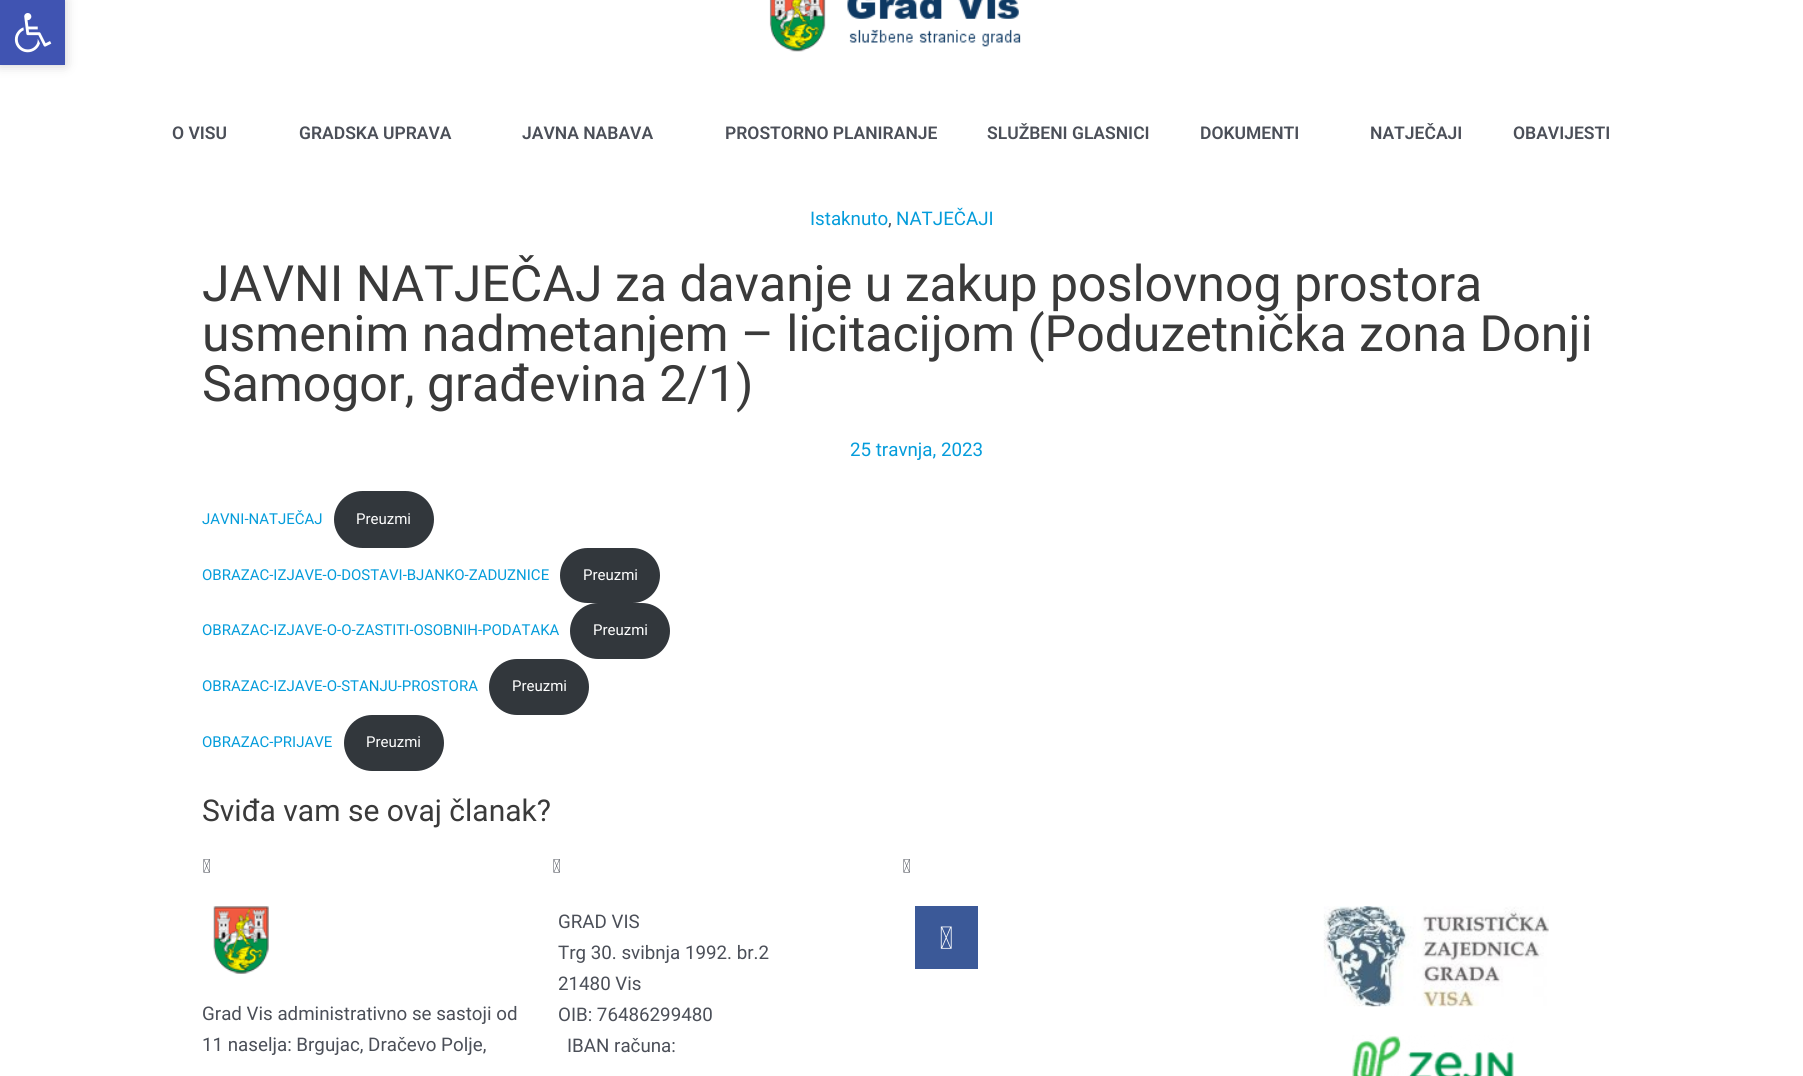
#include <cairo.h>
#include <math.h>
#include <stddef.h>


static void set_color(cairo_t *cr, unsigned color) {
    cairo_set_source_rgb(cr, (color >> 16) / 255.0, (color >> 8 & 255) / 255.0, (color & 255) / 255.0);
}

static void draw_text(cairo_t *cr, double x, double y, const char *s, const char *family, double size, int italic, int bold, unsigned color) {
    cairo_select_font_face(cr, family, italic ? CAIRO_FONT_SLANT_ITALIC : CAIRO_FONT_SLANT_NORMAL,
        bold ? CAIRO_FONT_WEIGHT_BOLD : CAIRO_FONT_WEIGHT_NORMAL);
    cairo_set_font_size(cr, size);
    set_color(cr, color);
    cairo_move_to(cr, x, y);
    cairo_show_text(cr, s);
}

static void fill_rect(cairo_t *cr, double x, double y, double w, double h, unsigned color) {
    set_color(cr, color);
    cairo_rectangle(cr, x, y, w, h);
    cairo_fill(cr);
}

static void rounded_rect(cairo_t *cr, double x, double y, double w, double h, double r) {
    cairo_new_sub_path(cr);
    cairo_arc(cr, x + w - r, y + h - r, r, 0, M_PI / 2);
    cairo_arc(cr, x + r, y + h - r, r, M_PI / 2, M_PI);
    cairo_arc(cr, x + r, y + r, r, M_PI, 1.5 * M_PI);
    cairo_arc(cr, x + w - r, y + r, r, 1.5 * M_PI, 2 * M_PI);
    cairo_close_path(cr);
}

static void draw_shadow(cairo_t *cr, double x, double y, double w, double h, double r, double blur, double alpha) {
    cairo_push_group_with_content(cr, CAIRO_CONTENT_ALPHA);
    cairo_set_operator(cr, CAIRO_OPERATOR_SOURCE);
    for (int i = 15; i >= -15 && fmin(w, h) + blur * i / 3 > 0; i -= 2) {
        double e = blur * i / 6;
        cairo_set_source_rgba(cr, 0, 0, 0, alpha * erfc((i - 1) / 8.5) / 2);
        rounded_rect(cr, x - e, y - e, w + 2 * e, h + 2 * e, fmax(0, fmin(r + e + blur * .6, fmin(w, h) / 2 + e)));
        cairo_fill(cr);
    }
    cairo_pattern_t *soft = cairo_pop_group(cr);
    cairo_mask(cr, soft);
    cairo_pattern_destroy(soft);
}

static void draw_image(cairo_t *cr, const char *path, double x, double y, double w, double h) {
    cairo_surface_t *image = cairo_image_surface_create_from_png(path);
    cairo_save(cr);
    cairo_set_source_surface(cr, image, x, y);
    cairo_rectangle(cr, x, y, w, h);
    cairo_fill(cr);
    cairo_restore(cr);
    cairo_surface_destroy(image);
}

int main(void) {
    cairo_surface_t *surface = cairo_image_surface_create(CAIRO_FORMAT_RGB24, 1803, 1076);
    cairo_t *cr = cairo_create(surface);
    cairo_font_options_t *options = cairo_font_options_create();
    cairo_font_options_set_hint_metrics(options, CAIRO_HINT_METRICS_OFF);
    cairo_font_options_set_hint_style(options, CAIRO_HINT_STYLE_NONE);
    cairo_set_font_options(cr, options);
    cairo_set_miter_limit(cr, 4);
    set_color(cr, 0xFFFFFF);
    cairo_paint(cr);
    set_color(cr, 0x000000);
    draw_shadow(cr, 0, 0, 65, 65, 0, 6, 0.2);
    fill_rect(cr, 0, 0, 65, 65, 0x4054B2);
    draw_image(cr, "assets/img1.png", 14, 13, 38, 40);
    draw_image(cr, "assets/img2.png", 769, 0, 252, 52);
    draw_text(cr, 172, 139, "O VISU", "Roboto SemiBold", 17.5, 0, 0, 0x4B4F58);
    draw_text(cr, 299, 139, "GRADSKA UPRAVA", "Roboto SemiBold", 17.5, 0, 0, 0x4B4F58);
    draw_text(cr, 522, 139, "JAVNA NABAVA", "Roboto SemiBold", 17.5, 0, 0, 0x4B4F58);
    draw_text(cr, 725, 139, "PROSTORNO PLANIRANJE", "Roboto SemiBold", 17.5, 0, 0, 0x4B4F58);
    draw_text(cr, 987, 139, "SLUŽBENI GLASNICI", "Roboto SemiBold", 17.5, 0, 0, 0x4B4F58);
    draw_text(cr, 1200, 139, "DOKUMENTI", "Roboto SemiBold", 17.5, 0, 0, 0x4B4F58);
    draw_text(cr, 1370, 139, "NATJEČAJI", "Roboto SemiBold", 17.5, 0, 0, 0x4B4F58);
    draw_text(cr, 1513, 139, "OBAVIJESTI", "Roboto SemiBold", 17.5, 0, 0, 0x4B4F58);
    draw_text(cr, 810, 225, "Istaknuto", "Roboto", 18.75, 0, 0, 0x049CDB);
    draw_text(cr, 888, 225, ",", "Roboto", 18.75, 0, 0, 0x4B4F58);
    draw_text(cr, 896, 225, "NATJEČAJI", "Roboto", 18.75, 0, 0, 0x049CDB);
    draw_text(cr, 202, 301, "JAVNI NATJEČAJ za davanje u zakup poslovnog prostora", "Roboto", 50, 0, 0, 0x3A3A3A);
    draw_text(cr, 202, 351, "usmenim nadmetanjem – licitacijom (Poduzetnička zona Donji", "Roboto", 50, 0, 0, 0x3A3A3A);
    draw_text(cr, 202, 401, "Samogor, građevina 2/1)", "Roboto", 50, 0, 0, 0x3A3A3A);
    draw_text(cr, 850, 456, "25 travnja, 2023", "Roboto", 18.75, 0, 0, 0x049CDB);
    draw_text(cr, 202, 524, "JAVNI-NATJEČAJ", "Roboto", 15, 0, 0, 0x049CDB);
    set_color(cr, 0x32373C);
    rounded_rect(cr, 334, 491, 100, 57, 28.5);
    cairo_fill(cr);
    draw_text(cr, 356, 524, "Preuzmi", "Roboto", 15, 0, 0, 0xFFFFFF);
    draw_text(cr, 202, 580, "OBRAZAC-IZJAVE-O-DOSTAVI-BJANKO-ZADUZNICE", "Roboto", 15, 0, 0, 0x049CDB);
    set_color(cr, 0x32373C);
    rounded_rect(cr, 560, 548, 100, 55, 27.5);
    cairo_fill(cr);
    draw_text(cr, 583, 580, "Preuzmi", "Roboto", 15, 0, 0, 0xFFFFFF);
    draw_text(cr, 202, 635, "OBRAZAC-IZJAVE-O-O-ZASTITI-OSOBNIH-PODATAKA", "Roboto", 15, 0, 0, 0x049CDB);
    set_color(cr, 0x32373C);
    rounded_rect(cr, 570, 603, 100, 56, 28);
    cairo_fill(cr);
    draw_text(cr, 593, 635, "Preuzmi", "Roboto", 15, 0, 0, 0xFFFFFF);
    draw_text(cr, 202, 691, "OBRAZAC-IZJAVE-O-STANJU-PROSTORA", "Roboto", 15, 0, 0, 0x049CDB);
    set_color(cr, 0x32373C);
    rounded_rect(cr, 489, 659, 100, 56, 28);
    cairo_fill(cr);
    draw_text(cr, 512, 691, "Preuzmi", "Roboto", 15, 0, 0, 0xFFFFFF);
    draw_text(cr, 202, 747, "OBRAZAC-PRIJAVE", "Roboto", 15, 0, 0, 0x049CDB);
    set_color(cr, 0x32373C);
    rounded_rect(cr, 344, 715, 100, 56, 28);
    cairo_fill(cr);
    draw_text(cr, 366, 747, "Preuzmi", "Roboto", 15, 0, 0, 0xFFFFFF);
    draw_text(cr, 202, 821, "Sviđa vam se ovaj članak?", "Roboto", 30, 0, 0, 0x3A3A3A);
    draw_image(cr, "assets/img3.png", 203, 859, 7, 14);
    draw_image(cr, "assets/img3.png", 553, 859, 7, 14);
    draw_image(cr, "assets/img3.png", 903, 859, 7, 14);
    draw_image(cr, "assets/img4.png", 213, 906, 56, 68);
    draw_text(cr, 202, 1020, "Grad Vis administrativno se sastoji od", "Roboto", 18.75, 0, 0, 0x4B4F58);
    draw_text(cr, 202, 1051, "11 naselja: Brgujac, Dračevo Polje,", "Roboto", 18.75, 0, 0, 0x4B4F58);
    draw_text(cr, 558, 928, "GRAD VIS", "Roboto", 18.75, 0, 0, 0x4B4F58);
    draw_text(cr, 558, 959, "Trg 30. svibnja 1992. br.2", "Roboto", 18.75, 0, 0, 0x4B4F58);
    draw_text(cr, 558, 990, "21480 Vis", "Roboto", 18.75, 0, 0, 0x4B4F58);
    draw_text(cr, 558, 1021, "OIB: 76486299480", "Roboto", 18.75, 0, 0, 0x4B4F58);
    draw_text(cr, 567, 1052, "IBAN računa:", "Roboto", 18.75, 0, 0, 0x4B4F58);
    fill_rect(cr, 915, 906, 63, 63, 0x3B5998);
    draw_image(cr, "assets/img5.png", 940, 926, 12, 23);
    draw_image(cr, "assets/img6.png", 1323, 906, 226, 101);
    draw_image(cr, "assets/img7.png", 1352, 1035, 162, 41);
    cairo_surface_write_to_png(surface, "output.png");
    cairo_font_options_destroy(options);
    cairo_destroy(cr);
    cairo_surface_destroy(surface);
    return 0;
}
